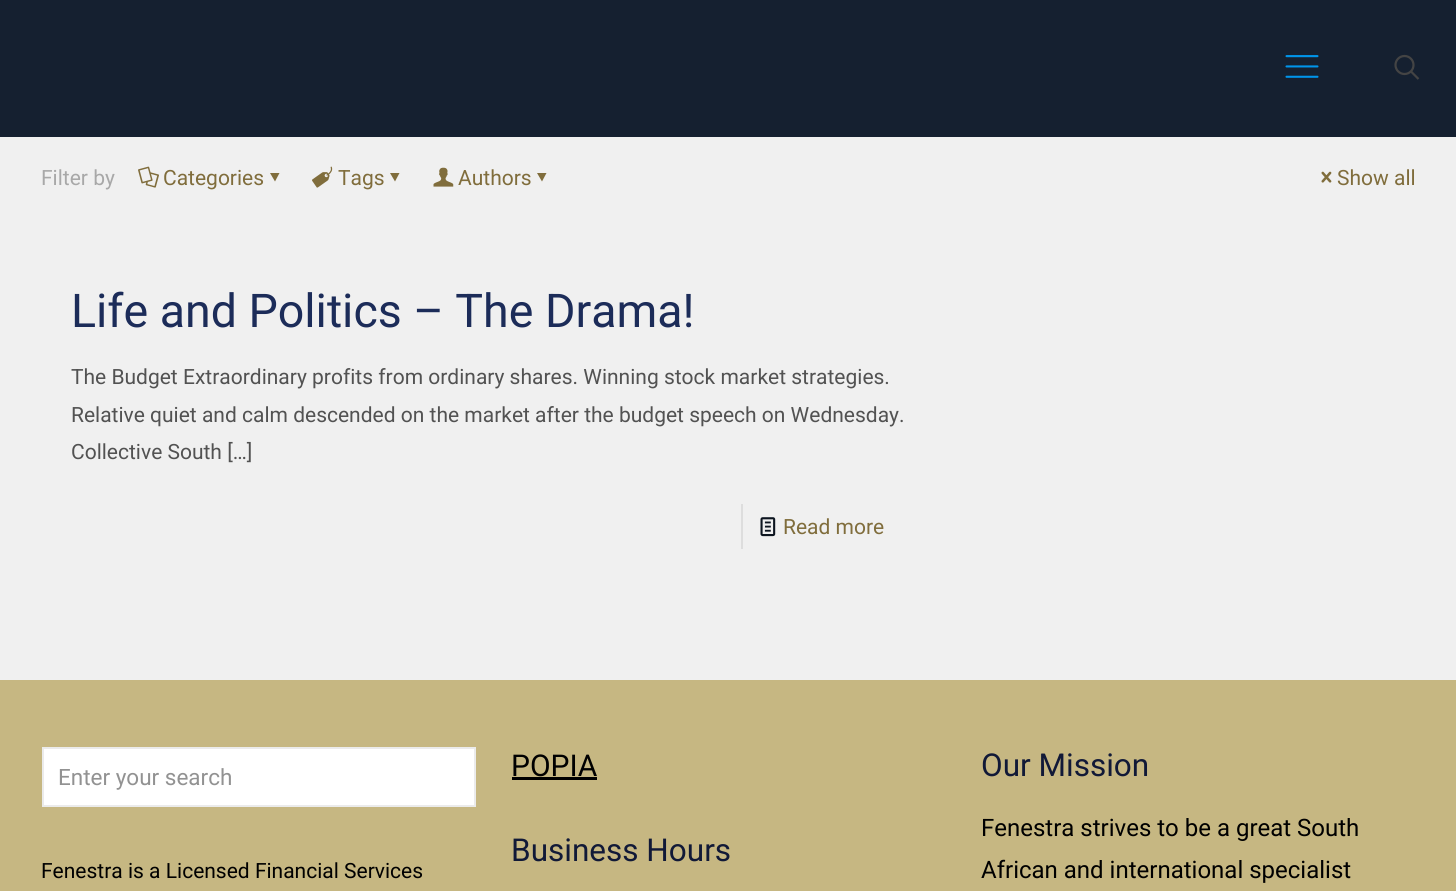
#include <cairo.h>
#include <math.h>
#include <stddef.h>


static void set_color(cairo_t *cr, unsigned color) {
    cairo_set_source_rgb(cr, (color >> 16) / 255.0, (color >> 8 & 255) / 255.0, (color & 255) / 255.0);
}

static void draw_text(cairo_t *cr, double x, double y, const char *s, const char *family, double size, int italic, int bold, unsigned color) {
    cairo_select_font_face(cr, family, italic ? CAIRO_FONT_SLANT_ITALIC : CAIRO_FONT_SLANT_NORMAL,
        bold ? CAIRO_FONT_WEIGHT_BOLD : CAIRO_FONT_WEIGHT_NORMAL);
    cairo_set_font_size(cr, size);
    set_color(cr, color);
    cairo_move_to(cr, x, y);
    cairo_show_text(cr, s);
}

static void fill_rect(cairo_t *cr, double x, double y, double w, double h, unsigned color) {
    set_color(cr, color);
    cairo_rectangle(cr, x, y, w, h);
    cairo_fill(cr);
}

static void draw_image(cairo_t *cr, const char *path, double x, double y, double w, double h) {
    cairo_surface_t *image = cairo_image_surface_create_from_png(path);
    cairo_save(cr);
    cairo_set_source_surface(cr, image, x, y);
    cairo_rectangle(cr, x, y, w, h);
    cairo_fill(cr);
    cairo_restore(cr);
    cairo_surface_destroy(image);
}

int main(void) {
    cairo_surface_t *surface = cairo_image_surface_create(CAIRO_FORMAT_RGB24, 1456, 891);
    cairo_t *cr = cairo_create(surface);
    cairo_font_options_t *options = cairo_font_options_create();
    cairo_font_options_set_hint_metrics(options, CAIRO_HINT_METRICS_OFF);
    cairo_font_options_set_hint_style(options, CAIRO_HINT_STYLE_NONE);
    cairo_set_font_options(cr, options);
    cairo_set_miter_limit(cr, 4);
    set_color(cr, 0xF0F0F0);
    cairo_paint(cr);
    fill_rect(cr, 0, 0, 1456, 137, 0x152030);
    draw_image(cr, "assets/img1.png", 1285, 55, 34, 23);
    cairo_arc(cr, 1404.5, 65, 9, 0, 2 * M_PI);
    set_color(cr, 0x444444);
    cairo_set_line_width(cr, 2.2);
    cairo_stroke(cr);
    cairo_new_path(cr);
    cairo_move_to(cr, 1411, 71.5);
    cairo_line_to(cr, 1418.5, 79);
    cairo_stroke(cr);
    draw_text(cr, 41, 185, "Filter by", "Roboto", 21, 0, 0, 0xA8A8A8);
    draw_image(cr, "assets/img2.png", 138, 166, 21, 22);
    draw_text(cr, 163, 185, "Categories", "Roboto", 21, 0, 0, 0x806D3C);
    cairo_new_path(cr);
    cairo_move_to(cr, 279.5, 173);
    cairo_line_to(cr, 275, 181.5);
    cairo_line_to(cr, 270, 173);
    cairo_close_path(cr);
    cairo_fill(cr);
    draw_image(cr, "assets/img3.png", 312, 166, 21, 22);
    draw_text(cr, 338, 185, "Tags", "Roboto", 21, 0, 0, 0x806D3C);
    cairo_new_path(cr);
    cairo_move_to(cr, 399.5, 173);
    cairo_line_to(cr, 395, 181.5);
    cairo_line_to(cr, 390, 173);
    cairo_close_path(cr);
    cairo_fill(cr);
    draw_image(cr, "assets/img4.png", 433, 167, 21, 20);
    draw_text(cr, 458, 185, "Authors", "Roboto", 21, 0, 0, 0x806D3C);
    cairo_new_path(cr);
    cairo_move_to(cr, 546.5, 173);
    cairo_line_to(cr, 542, 181.5);
    cairo_line_to(cr, 537, 173);
    cairo_close_path(cr);
    cairo_fill(cr);
    draw_image(cr, "assets/img5.png", 1321, 171, 11, 12);
    draw_text(cr, 1337, 185, "Show all", "Roboto", 21, 0, 0, 0x806D3C);
    draw_text(cr, 71, 327, "Life and Politics – The Drama!", "Roboto", 46.5, 0, 0, 0x1C2C59);
    draw_text(cr, 71, 384, "The Budget Extraordinary profits from ordinary shares. Winning stock market strategies.", "Roboto", 21, 0, 0, 0x525252);
    draw_text(cr, 71, 422, "Relative quiet and calm descended on the market after the budget speech on Wednesday.", "Roboto", 21, 0, 0, 0x525252);
    draw_text(cr, 71, 459, "Collective South […]", "Roboto", 21, 0, 0, 0x525252);
    fill_rect(cr, 741, 504, 2, 45, 0xDDDDDD);
    draw_image(cr, "assets/img6.png", 760, 517, 16, 20);
    draw_text(cr, 783, 534, "Read more", "Roboto", 21, 0, 0, 0x806D3C);
    fill_rect(cr, 0, 680, 1456, 211, 0xC6B782);
    set_color(cr, 0xFFFFFF);
    cairo_rectangle(cr, 43, 748, 432, 58);
    cairo_fill_preserve(cr);
    set_color(cr, 0xEBEBEB);
    cairo_set_line_width(cr, 2);
    cairo_stroke(cr);
    draw_text(cr, 58, 785, "Enter your search", "Roboto", 22.5, 0, 0, 0x929292);
    draw_text(cr, 41, 878, "Fenestra is a Licensed Financial Services", "Roboto", 21, 0, 0, 0x000000);
    draw_text(cr, 511, 776, "POPIA", "Roboto", 30, 0, 0, 0x000000);
    fill_rect(cr, 512, 777, 85, 3, 0x000000);
    draw_text(cr, 511, 861, "Business Hours", "Roboto", 31.5, 0, 0, 0x111937);
    draw_text(cr, 981, 776, "Our Mission", "Roboto", 31.5, 0, 0, 0x111937);
    draw_text(cr, 981, 836, "Fenestra strives to be a great South", "Roboto", 24, 0, 0, 0x000000);
    draw_text(cr, 981, 878, "African and international specialist", "Roboto", 24, 0, 0, 0x000000);
    cairo_surface_write_to_png(surface, "output.png");
    cairo_font_options_destroy(options);
    cairo_destroy(cr);
    cairo_surface_destroy(surface);
    return 0;
}
